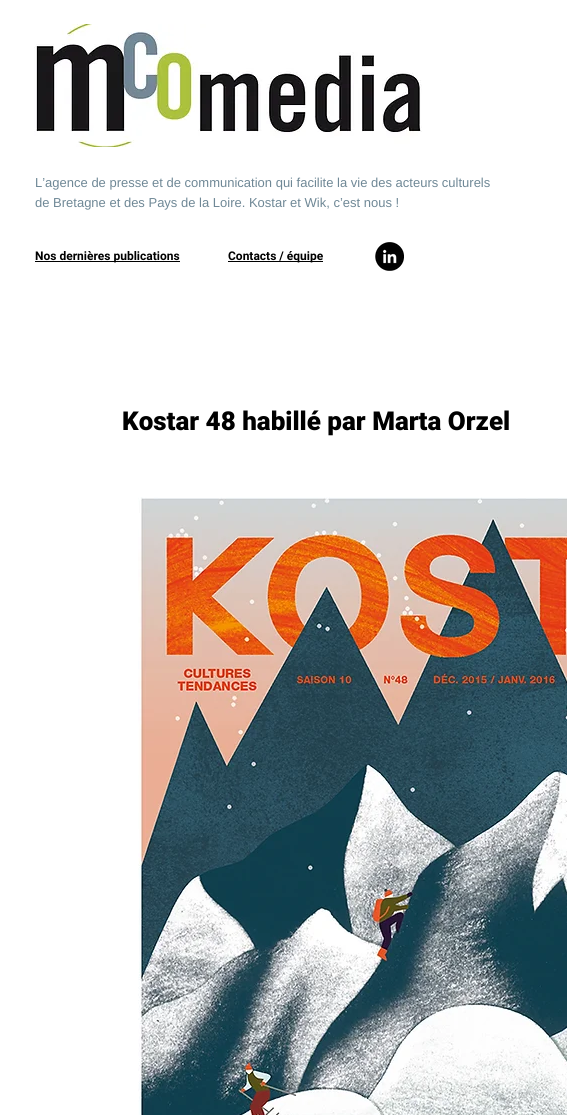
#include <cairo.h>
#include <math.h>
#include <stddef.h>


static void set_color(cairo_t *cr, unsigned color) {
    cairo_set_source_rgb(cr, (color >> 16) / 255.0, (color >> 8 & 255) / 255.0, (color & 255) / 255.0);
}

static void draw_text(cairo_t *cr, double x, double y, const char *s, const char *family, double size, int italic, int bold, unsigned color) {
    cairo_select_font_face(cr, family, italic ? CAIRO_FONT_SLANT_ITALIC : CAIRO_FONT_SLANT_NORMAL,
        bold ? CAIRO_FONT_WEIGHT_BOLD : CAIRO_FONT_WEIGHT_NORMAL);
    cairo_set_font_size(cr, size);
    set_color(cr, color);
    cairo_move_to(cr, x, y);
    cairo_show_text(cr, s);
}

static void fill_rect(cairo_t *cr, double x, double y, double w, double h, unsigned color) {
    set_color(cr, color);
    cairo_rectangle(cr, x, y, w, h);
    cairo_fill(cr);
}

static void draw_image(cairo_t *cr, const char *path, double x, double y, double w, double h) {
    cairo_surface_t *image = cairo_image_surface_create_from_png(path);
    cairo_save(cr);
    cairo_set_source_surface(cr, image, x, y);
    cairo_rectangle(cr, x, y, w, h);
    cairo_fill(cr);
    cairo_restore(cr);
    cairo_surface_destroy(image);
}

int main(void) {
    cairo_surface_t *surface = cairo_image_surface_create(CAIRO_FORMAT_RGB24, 567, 1115);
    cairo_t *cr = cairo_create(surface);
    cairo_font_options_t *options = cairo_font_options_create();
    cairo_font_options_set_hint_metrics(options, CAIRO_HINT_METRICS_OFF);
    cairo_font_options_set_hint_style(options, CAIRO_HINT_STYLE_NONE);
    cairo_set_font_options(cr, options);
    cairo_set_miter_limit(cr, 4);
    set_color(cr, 0xFFFFFF);
    cairo_paint(cr);
    draw_image(cr, "assets/img1.png", 34, 24, 388, 123);
    draw_text(cr, 35, 187, "L’agence de presse et de communication qui facilite la vie des acteurs culturels", "Liberation Sans", 13, 0, 0, 0x6F8896);
    draw_text(cr, 35, 207, "de Bretagne et des Pays de la Loire. Kostar et Wik, c’est nous !", "Liberation Sans", 13, 0, 0, 0x6F8896);
    fill_rect(cr, 35, 261, 145, 1, 0x000000);
    draw_text(cr, 35, 260, "Nos dernières publications", "Roboto", 12, 0, 1, 0x000000);
    fill_rect(cr, 228, 261, 95, 1, 0x000000);
    draw_text(cr, 228, 260, "Contacts / équipe", "Roboto", 12, 0, 1, 0x000000);
    draw_image(cr, "assets/img2.png", 375, 242, 29, 29);
    draw_text(cr, 122, 430, "Kostar 48 habillé par Marta Orzel", "Roboto Black", 26, 0, 0, 0x000000);
    draw_image(cr, "assets/img3.png", 138, 497, 429, 618);
    cairo_surface_write_to_png(surface, "output.png");
    cairo_font_options_destroy(options);
    cairo_destroy(cr);
    cairo_surface_destroy(surface);
    return 0;
}
